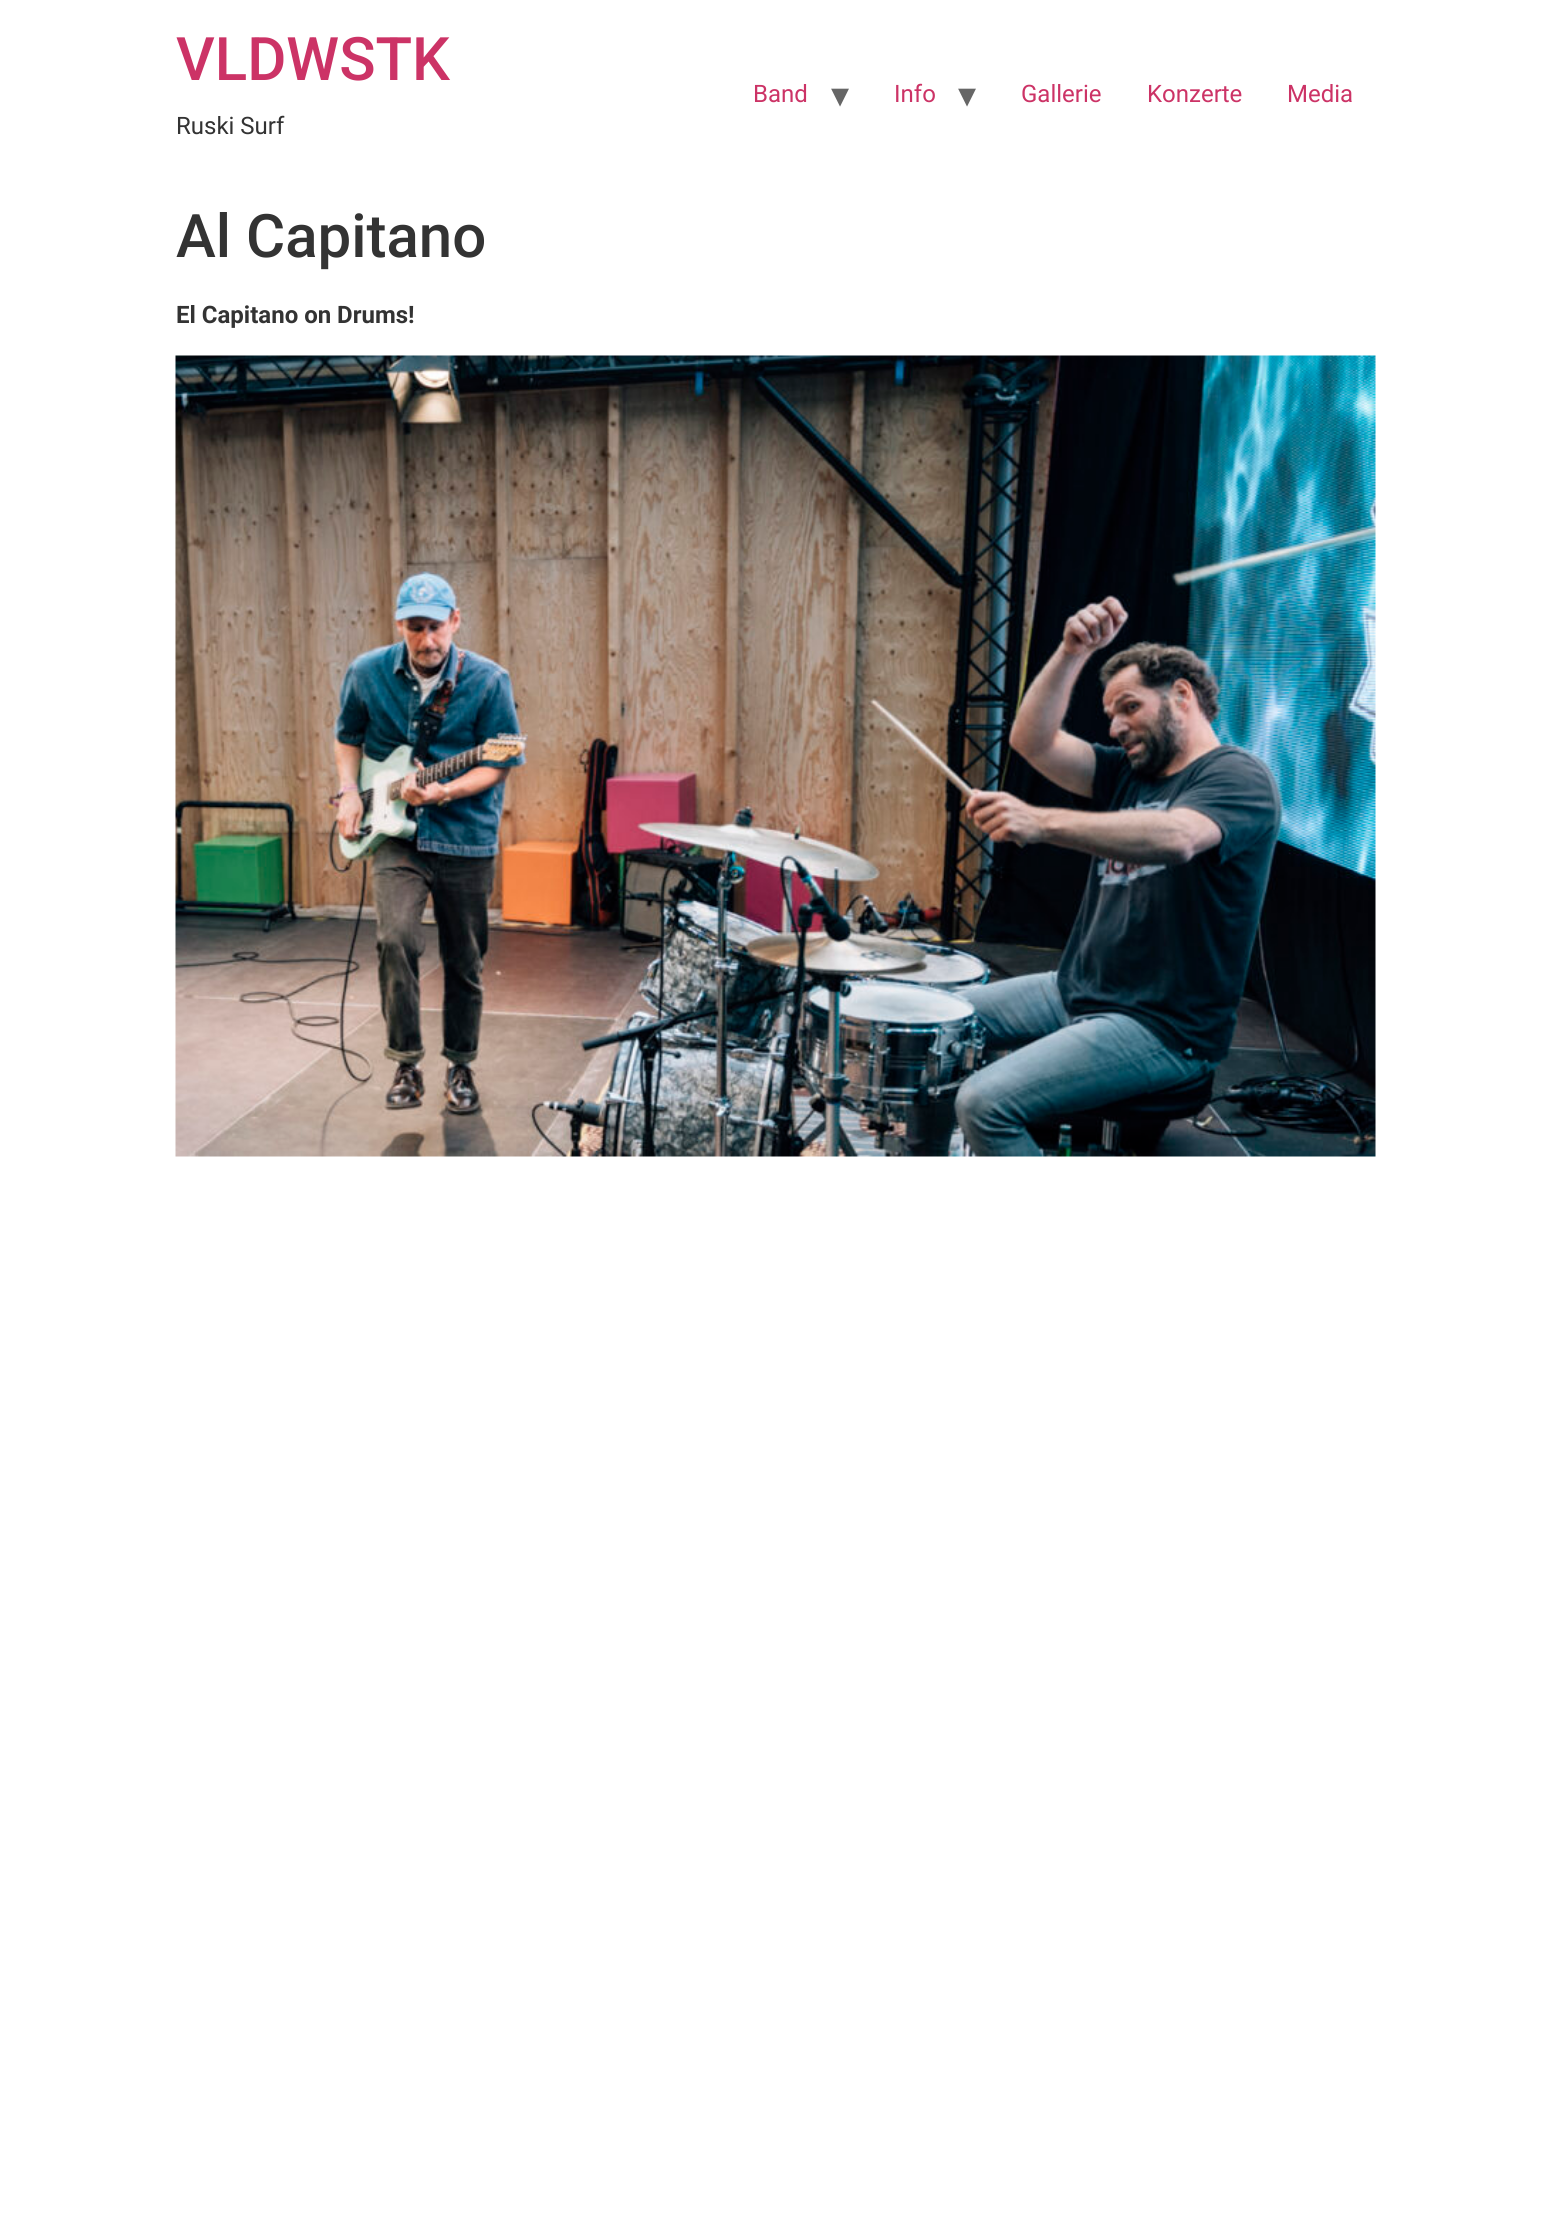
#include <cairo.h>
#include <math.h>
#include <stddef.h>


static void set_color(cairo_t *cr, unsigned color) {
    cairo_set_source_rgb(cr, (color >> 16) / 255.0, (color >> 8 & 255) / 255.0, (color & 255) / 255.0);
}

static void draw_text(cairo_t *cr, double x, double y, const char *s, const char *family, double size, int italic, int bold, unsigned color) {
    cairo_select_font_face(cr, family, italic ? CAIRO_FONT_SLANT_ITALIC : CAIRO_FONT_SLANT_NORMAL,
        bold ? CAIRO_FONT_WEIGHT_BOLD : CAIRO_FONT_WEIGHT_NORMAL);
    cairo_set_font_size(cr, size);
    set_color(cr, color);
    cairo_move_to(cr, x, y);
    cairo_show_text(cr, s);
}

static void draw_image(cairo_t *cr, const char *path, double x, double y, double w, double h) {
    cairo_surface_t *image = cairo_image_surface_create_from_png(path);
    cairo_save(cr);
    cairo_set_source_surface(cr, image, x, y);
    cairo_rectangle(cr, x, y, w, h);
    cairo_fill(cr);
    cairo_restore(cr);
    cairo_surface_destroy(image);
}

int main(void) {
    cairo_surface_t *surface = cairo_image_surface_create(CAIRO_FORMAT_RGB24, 1550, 2234);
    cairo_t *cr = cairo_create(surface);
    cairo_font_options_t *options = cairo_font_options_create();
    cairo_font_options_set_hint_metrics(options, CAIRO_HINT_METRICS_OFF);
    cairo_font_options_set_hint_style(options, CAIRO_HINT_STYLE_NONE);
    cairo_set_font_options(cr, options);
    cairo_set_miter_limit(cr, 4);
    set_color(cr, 0xFFFFFF);
    cairo_paint(cr);
    draw_text(cr, 176, 80, "VLDWSTK", "Roboto Medium", 60, 0, 0, 0xCC3366);
    draw_text(cr, 176, 134, "Ruski Surf", "Roboto", 24, 0, 0, 0x333333);
    draw_text(cr, 753, 102, "Band", "Roboto", 24, 0, 0, 0xCC3366);
    draw_text(cr, 831, 107, "▾", "DejaVu Sans", 36, 0, 0, 0x666666);
    draw_text(cr, 894, 102, "Info", "Roboto", 24, 0, 0, 0xCC3366);
    draw_text(cr, 958, 107, "▾", "DejaVu Sans", 36, 0, 0, 0x666666);
    draw_text(cr, 1021, 102, "Gallerie", "Roboto", 24, 0, 0, 0xCC3366);
    draw_text(cr, 1147, 102, "Konzerte", "Roboto", 24, 0, 0, 0xCC3366);
    draw_text(cr, 1287, 102, "Media", "Roboto", 24, 0, 0, 0xCC3366);
    draw_text(cr, 176, 257, "Al Capitano", "Roboto Medium", 60, 0, 0, 0x333333);
    draw_text(cr, 176, 323, "El Capitano on Drums!", "Roboto", 24, 0, 1, 0x333333);
    draw_image(cr, "assets/img1.png", 175, 355, 1201, 802);
    cairo_surface_write_to_png(surface, "output.png");
    cairo_font_options_destroy(options);
    cairo_destroy(cr);
    cairo_surface_destroy(surface);
    return 0;
}
